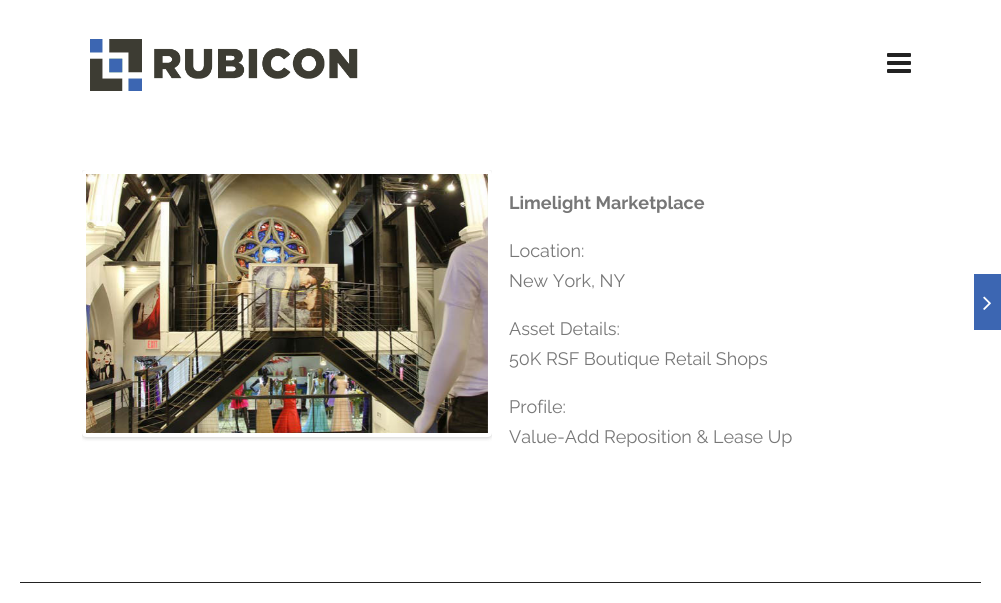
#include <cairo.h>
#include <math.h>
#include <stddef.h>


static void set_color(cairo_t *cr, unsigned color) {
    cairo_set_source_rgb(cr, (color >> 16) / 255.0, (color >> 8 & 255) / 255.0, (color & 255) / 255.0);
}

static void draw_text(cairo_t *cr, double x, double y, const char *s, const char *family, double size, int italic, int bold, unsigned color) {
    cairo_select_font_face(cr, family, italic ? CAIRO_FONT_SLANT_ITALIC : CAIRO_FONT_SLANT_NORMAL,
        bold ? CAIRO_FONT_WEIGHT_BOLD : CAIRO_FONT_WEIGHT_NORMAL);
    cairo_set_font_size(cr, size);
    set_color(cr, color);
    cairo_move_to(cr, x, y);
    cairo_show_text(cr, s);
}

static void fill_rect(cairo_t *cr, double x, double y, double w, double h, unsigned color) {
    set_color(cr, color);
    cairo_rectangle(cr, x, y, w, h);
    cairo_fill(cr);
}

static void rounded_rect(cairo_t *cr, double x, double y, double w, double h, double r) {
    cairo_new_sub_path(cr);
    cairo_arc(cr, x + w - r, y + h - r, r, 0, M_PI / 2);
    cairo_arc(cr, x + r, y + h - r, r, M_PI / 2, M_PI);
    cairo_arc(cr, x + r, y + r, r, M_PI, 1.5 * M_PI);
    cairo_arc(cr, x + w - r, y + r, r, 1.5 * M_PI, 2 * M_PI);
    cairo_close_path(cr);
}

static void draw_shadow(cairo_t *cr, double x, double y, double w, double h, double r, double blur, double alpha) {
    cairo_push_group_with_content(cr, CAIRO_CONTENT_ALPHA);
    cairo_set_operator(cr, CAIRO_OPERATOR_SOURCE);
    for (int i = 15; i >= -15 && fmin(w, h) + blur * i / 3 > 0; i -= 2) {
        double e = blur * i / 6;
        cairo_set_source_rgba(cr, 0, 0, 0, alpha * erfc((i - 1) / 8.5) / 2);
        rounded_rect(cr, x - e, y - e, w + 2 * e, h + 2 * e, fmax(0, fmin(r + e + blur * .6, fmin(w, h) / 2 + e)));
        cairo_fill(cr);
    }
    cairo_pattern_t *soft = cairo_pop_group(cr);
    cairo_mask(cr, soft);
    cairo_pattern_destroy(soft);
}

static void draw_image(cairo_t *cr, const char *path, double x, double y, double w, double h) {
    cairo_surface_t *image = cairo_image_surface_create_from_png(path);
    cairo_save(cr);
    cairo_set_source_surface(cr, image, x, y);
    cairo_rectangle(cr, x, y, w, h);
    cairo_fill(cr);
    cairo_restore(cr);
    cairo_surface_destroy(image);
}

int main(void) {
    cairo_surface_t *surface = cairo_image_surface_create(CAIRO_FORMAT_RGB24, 1001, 603);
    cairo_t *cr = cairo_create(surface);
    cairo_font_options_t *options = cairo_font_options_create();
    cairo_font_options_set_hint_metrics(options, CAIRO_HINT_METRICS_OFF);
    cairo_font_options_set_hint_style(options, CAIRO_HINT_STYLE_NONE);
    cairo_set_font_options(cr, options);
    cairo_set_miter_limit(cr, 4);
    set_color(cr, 0xFFFFFF);
    cairo_paint(cr);
    draw_image(cr, "assets/img1.png", 90, 39, 268, 52);
    draw_image(cr, "assets/img2.png", 887, 53, 24, 20);
    cairo_save(cr);
    cairo_rectangle(cr, 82, 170, 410, 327);
    cairo_clip(cr);
    set_color(cr, 0x000000);
    draw_shadow(cr, 82, 171, 410, 267, 4, 2, 0.2);
    cairo_restore(cr);
    rounded_rect(cr, 84, 172, 406, 263, 2);
    set_color(cr, 0xFFFFFF);
    cairo_set_line_width(cr, 4);
    cairo_stroke(cr);
    draw_image(cr, "assets/img3.png", 86, 174, 402, 259);
    draw_text(cr, 509, 209, "Limelight Marketplace", "Raleway", 18, 0, 1, 0x777777);
    draw_text(cr, 509, 257, "Location:", "Raleway", 18, 0, 0, 0x777777);
    draw_text(cr, 509, 287, "New York, NY", "Raleway", 18, 0, 0, 0x777777);
    draw_text(cr, 509, 335, "Asset Details:", "Raleway", 18, 0, 0, 0x777777);
    draw_text(cr, 509, 365, "50K RSF Boutique Retail Shops", "Raleway", 18, 0, 0, 0x777777);
    draw_text(cr, 509, 413, "Profile:", "Raleway", 18, 0, 0, 0x777777);
    draw_text(cr, 509, 443, "Value-Add Reposition & Lease Up", "Raleway", 18, 0, 0, 0x777777);
    fill_rect(cr, 974, 274, 27, 56, 0x3C66B2);
    draw_image(cr, "assets/img4.png", 983, 296, 8, 14);
    fill_rect(cr, 20, 582, 961, 1, 0x222222);
    cairo_surface_write_to_png(surface, "output.png");
    cairo_font_options_destroy(options);
    cairo_destroy(cr);
    cairo_surface_destroy(surface);
    return 0;
}
